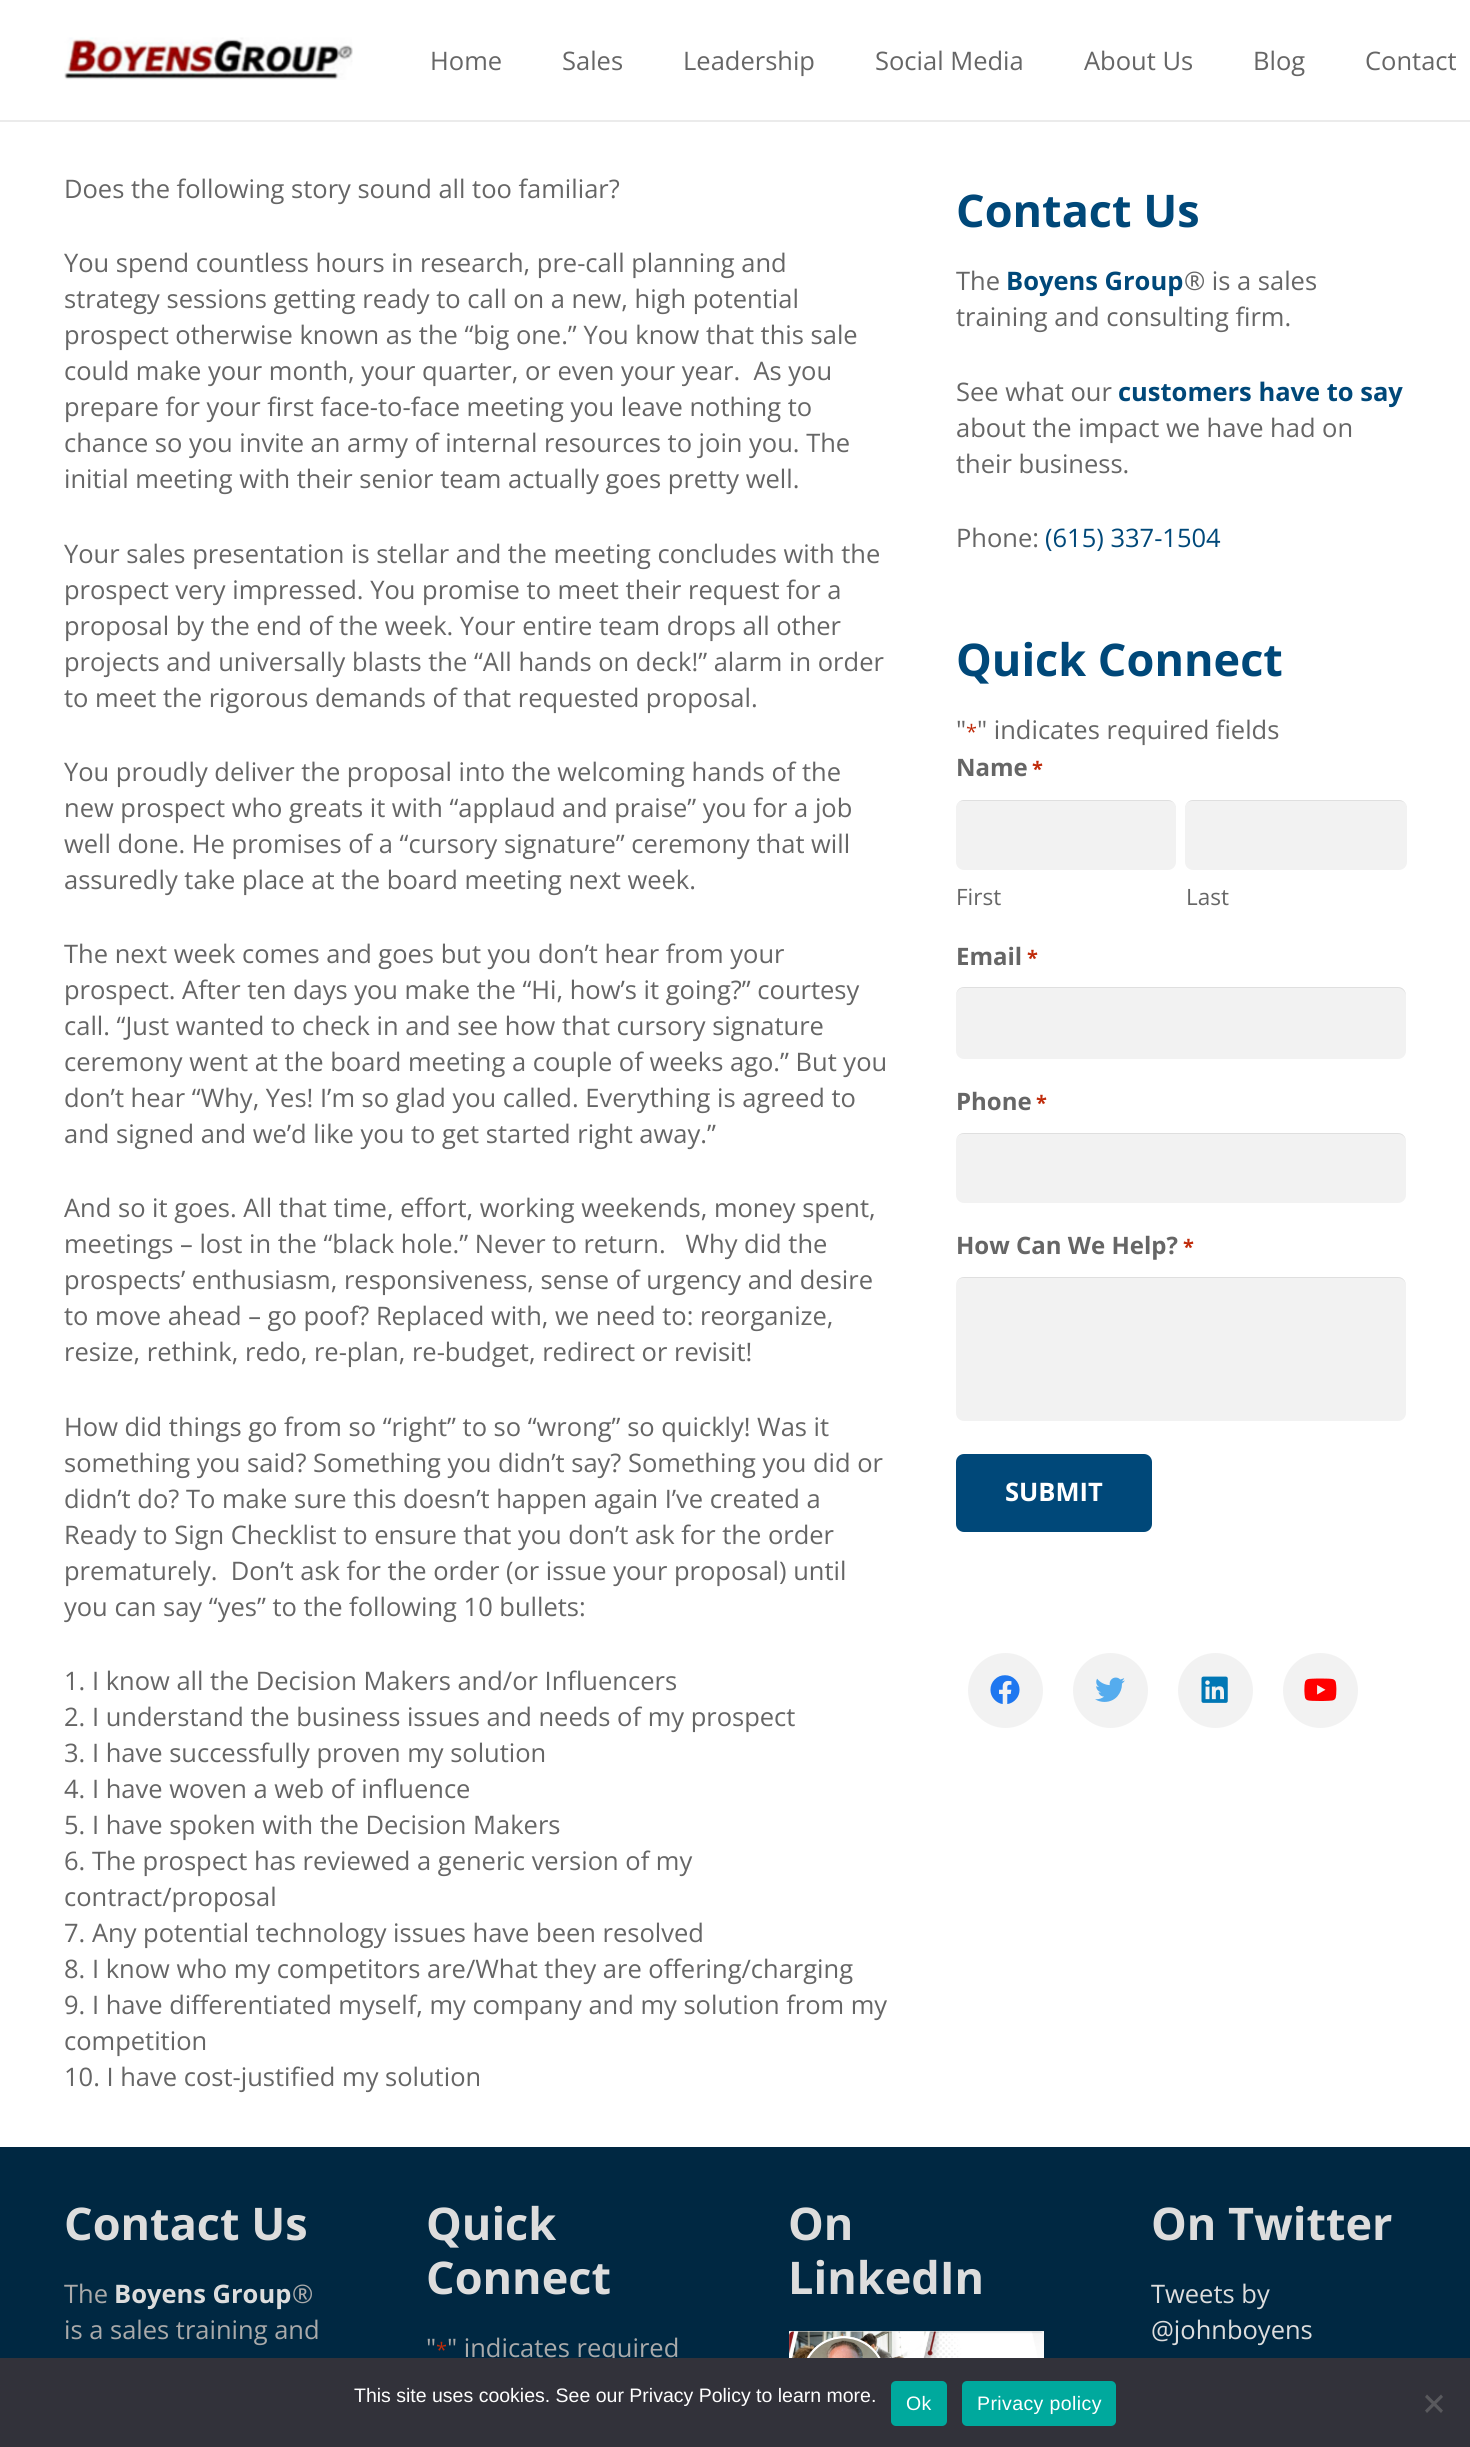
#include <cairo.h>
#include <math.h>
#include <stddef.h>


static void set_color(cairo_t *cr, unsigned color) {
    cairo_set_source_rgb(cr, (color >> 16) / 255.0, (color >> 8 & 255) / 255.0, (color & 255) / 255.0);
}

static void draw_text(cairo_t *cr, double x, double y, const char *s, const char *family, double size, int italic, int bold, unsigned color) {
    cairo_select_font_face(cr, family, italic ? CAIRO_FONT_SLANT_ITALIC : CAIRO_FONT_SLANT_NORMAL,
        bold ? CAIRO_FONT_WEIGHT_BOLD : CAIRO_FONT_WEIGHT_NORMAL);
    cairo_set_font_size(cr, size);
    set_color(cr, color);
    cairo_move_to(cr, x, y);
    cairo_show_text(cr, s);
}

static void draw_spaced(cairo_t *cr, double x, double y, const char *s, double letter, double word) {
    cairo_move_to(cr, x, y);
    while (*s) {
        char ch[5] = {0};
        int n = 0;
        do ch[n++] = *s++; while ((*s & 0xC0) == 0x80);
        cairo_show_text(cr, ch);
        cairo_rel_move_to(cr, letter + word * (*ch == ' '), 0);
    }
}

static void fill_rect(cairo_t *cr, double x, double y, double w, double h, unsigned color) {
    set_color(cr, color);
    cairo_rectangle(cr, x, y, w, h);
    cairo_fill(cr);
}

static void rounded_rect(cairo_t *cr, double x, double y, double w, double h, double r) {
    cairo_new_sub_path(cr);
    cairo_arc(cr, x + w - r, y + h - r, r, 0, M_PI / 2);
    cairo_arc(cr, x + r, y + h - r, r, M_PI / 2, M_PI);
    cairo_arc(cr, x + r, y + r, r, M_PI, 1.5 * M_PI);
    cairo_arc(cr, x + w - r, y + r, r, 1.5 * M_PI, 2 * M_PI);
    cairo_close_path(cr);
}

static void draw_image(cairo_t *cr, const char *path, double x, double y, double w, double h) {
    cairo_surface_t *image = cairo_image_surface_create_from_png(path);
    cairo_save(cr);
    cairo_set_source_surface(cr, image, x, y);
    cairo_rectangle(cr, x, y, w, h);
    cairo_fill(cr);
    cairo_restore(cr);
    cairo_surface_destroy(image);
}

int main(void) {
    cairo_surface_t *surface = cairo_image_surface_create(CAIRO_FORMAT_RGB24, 1470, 2447);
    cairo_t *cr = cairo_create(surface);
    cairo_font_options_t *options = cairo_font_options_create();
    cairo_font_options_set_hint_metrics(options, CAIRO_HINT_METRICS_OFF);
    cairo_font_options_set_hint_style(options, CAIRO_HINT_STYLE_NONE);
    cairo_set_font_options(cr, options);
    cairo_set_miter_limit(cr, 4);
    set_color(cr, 0xFFFFFF);
    cairo_paint(cr);
    fill_rect(cr, 0, 120, 1470, 2, 0xEBEBEB);
    draw_image(cr, "assets/img1.png", 64, 37, 289, 43);
    draw_text(cr, 430, 70, "Home", "Open Sans", 25.5, 0, 0, 0x666666);
    draw_text(cr, 562, 70, "Sales", "Open Sans", 25.5, 0, 0, 0x666666);
    draw_text(cr, 683, 70, "Leadership", "Open Sans", 25.5, 0, 0, 0x666666);
    draw_text(cr, 875, 70, "Social Media", "Open Sans", 25.5, 0, 0, 0x666666);
    draw_text(cr, 1084, 70, "About Us", "Open Sans", 25.5, 0, 0, 0x666666);
    draw_text(cr, 1253, 70, "Blog", "Open Sans", 25.5, 0, 0, 0x666666);
    draw_text(cr, 1365, 70, "Contact", "Open Sans", 25.5, 0, 0, 0x666666);
    draw_text(cr, 64, 198, "Does the following story sound all too familiar?", "Open Sans", 25.5, 0, 0, 0x666666);
    draw_text(cr, 64, 272, "You spend countless hours in research, pre-call planning and", "Open Sans", 25.5, 0, 0, 0x666666);
    draw_text(cr, 64, 308, "strategy sessions getting ready to call on a new, high potential", "Open Sans", 25.5, 0, 0, 0x666666);
    draw_text(cr, 64, 344, "prospect otherwise known as the “big one.” You know that this sale", "Open Sans", 25.5, 0, 0, 0x666666);
    draw_text(cr, 64, 380, "could make your month, your quarter, or even your year.  As you", "Open Sans", 25.5, 0, 0, 0x666666);
    draw_text(cr, 64, 416, "prepare for your first face-to-face meeting you leave nothing to", "Open Sans", 25.5, 0, 0, 0x666666);
    draw_text(cr, 64, 452, "chance so you invite an army of internal resources to join you. The", "Open Sans", 25.5, 0, 0, 0x666666);
    draw_text(cr, 64, 488, "initial meeting with their senior team actually goes pretty well.", "Open Sans", 25.5, 0, 0, 0x666666);
    draw_text(cr, 64, 563, "Your sales presentation is stellar and the meeting concludes with the", "Open Sans", 25.5, 0, 0, 0x666666);
    draw_text(cr, 64, 599, "prospect very impressed. You promise to meet their request for a", "Open Sans", 25.5, 0, 0, 0x666666);
    draw_text(cr, 64, 635, "proposal by the end of the week. Your entire team drops all other", "Open Sans", 25.5, 0, 0, 0x666666);
    draw_text(cr, 64, 671, "projects and universally blasts the “All hands on deck!” alarm in order", "Open Sans", 25.5, 0, 0, 0x666666);
    draw_text(cr, 64, 707, "to meet the rigorous demands of that requested proposal.", "Open Sans", 25.5, 0, 0, 0x666666);
    draw_text(cr, 64, 781, "You proudly deliver the proposal into the welcoming hands of the", "Open Sans", 25.5, 0, 0, 0x666666);
    draw_text(cr, 64, 817, "new prospect who greats it with “applaud and praise” you for a job", "Open Sans", 25.5, 0, 0, 0x666666);
    draw_text(cr, 64, 853, "well done. He promises of a “cursory signature” ceremony that will", "Open Sans", 25.5, 0, 0, 0x666666);
    draw_text(cr, 64, 889, "assuredly take place at the board meeting next week.", "Open Sans", 25.5, 0, 0, 0x666666);
    draw_text(cr, 64, 963, "The next week comes and goes but you don’t hear from your", "Open Sans", 25.5, 0, 0, 0x666666);
    draw_text(cr, 64, 999, "prospect. After ten days you make the “Hi, how’s it going?” courtesy", "Open Sans", 25.5, 0, 0, 0x666666);
    draw_text(cr, 64, 1035, "call. “Just wanted to check in and see how that cursory signature", "Open Sans", 25.5, 0, 0, 0x666666);
    draw_text(cr, 64, 1071, "ceremony went at the board meeting a couple of weeks ago.” But you", "Open Sans", 25.5, 0, 0, 0x666666);
    draw_text(cr, 64, 1107, "don’t hear “Why, Yes! I’m so glad you called. Everything is agreed to", "Open Sans", 25.5, 0, 0, 0x666666);
    draw_text(cr, 64, 1143, "and signed and we’d like you to get started right away.”", "Open Sans", 25.5, 0, 0, 0x666666);
    draw_text(cr, 64, 1217, "And so it goes. All that time, effort, working weekends, money spent,", "Open Sans", 25.5, 0, 0, 0x666666);
    draw_text(cr, 64, 1253, "meetings – lost in the “black hole.” Never to return.   Why did the", "Open Sans", 25.5, 0, 0, 0x666666);
    draw_text(cr, 64, 1289, "prospects’ enthusiasm, responsiveness, sense of urgency and desire", "Open Sans", 25.5, 0, 0, 0x666666);
    draw_text(cr, 64, 1325, "to move ahead – go poof? Replaced with, we need to: reorganize,", "Open Sans", 25.5, 0, 0, 0x666666);
    draw_text(cr, 64, 1361, "resize, rethink, redo, re-plan, re-budget, redirect or revisit!", "Open Sans", 25.5, 0, 0, 0x666666);
    draw_text(cr, 64, 1436, "How did things go from so “right” to so “wrong” so quickly! Was it", "Open Sans", 25.5, 0, 0, 0x666666);
    draw_text(cr, 64, 1472, "something you said? Something you didn’t say? Something you did or", "Open Sans", 25.5, 0, 0, 0x666666);
    draw_text(cr, 64, 1508, "didn’t do? To make sure this doesn’t happen again I’ve created a", "Open Sans", 25.5, 0, 0, 0x666666);
    draw_text(cr, 64, 1544, "Ready to Sign Checklist to ensure that you don’t ask for the order", "Open Sans", 25.5, 0, 0, 0x666666);
    draw_text(cr, 64, 1580, "prematurely.  Don’t ask for the order (or issue your proposal) until", "Open Sans", 25.5, 0, 0, 0x666666);
    draw_text(cr, 64, 1616, "you can say “yes” to the following 10 bullets:", "Open Sans", 25.5, 0, 0, 0x666666);
    draw_text(cr, 64, 1690, "1. I know all the Decision Makers and/or Influencers", "Open Sans", 25.5, 0, 0, 0x666666);
    draw_text(cr, 64, 1726, "2. I understand the business issues and needs of my prospect", "Open Sans", 25.5, 0, 0, 0x666666);
    draw_text(cr, 64, 1762, "3. I have successfully proven my solution", "Open Sans", 25.5, 0, 0, 0x666666);
    draw_text(cr, 64, 1798, "4. I have woven a web of influence", "Open Sans", 25.5, 0, 0, 0x666666);
    draw_text(cr, 64, 1834, "5. I have spoken with the Decision Makers", "Open Sans", 25.5, 0, 0, 0x666666);
    draw_text(cr, 64, 1870, "6. The prospect has reviewed a generic version of my", "Open Sans", 25.5, 0, 0, 0x666666);
    draw_text(cr, 64, 1906, "contract/proposal", "Open Sans", 25.5, 0, 0, 0x666666);
    draw_text(cr, 64, 1942, "7. Any potential technology issues have been resolved", "Open Sans", 25.5, 0, 0, 0x666666);
    draw_text(cr, 64, 1978, "8. I know who my competitors are/What they are offering/charging", "Open Sans", 25.5, 0, 0, 0x666666);
    draw_text(cr, 64, 2014, "9. I have differentiated myself, my company and my solution from my", "Open Sans", 25.5, 0, 0, 0x666666);
    draw_text(cr, 64, 2050, "competition", "Open Sans", 25.5, 0, 0, 0x666666);
    draw_text(cr, 64, 2086, "10. I have cost-justified my solution", "Open Sans", 25.5, 0, 0, 0x666666);
    draw_text(cr, 956, 227, "Contact Us", "Open Sans", 45, 0, 1, 0x004879);
    draw_text(cr, 956, 290, "The", "Open Sans", 25.5, 0, 0, 0x666666);
    draw_text(cr, 1006, 290, "Boyens Group", "Open Sans", 25.5, 0, 1, 0x004879);
    draw_text(cr, 1184, 290, "® is a sales", "Open Sans", 25.5, 0, 0, 0x666666);
    draw_text(cr, 956, 326, "training and consulting firm.", "Open Sans", 25.5, 0, 0, 0x666666);
    draw_text(cr, 956, 401, "See what our", "Open Sans", 25.5, 0, 0, 0x666666);
    draw_text(cr, 1118, 401, "customers have to say", "Open Sans", 25.5, 0, 1, 0x004879);
    draw_text(cr, 956, 437, "about the impact we have had on", "Open Sans", 25.5, 0, 0, 0x666666);
    draw_text(cr, 956, 473, "their business.", "Open Sans", 25.5, 0, 0, 0x666666);
    draw_text(cr, 956, 547, "Phone:", "Open Sans", 25.5, 0, 0, 0x666666);
    draw_text(cr, 1045, 547, "(615) 337-1504", "Open Sans", 25.5, 0, 0, 0x004879);
    draw_text(cr, 956, 676, "Quick Connect", "Open Sans", 45, 0, 1, 0x004879);
    draw_text(cr, 956, 739, "\"", "Open Sans", 25.5, 0, 0, 0x666666);
    draw_text(cr, 966, 739, "*", "Open Sans", 20, 0, 0, 0xC02B0A);
    draw_text(cr, 977, 739, "\" indicates required fields", "Open Sans", 25.5, 0, 0, 0x666666);
    draw_text(cr, 956, 776, "Name", "Open Sans", 24, 0, 1, 0x666666);
    draw_text(cr, 1032, 776, "*", "Open Sans", 20, 0, 1, 0xC02B0A);
    set_color(cr, 0xF2F2F2);
    rounded_rect(cr, 956, 800, 220, 70, 8);
    cairo_fill(cr);
    set_color(cr, 0xDFDFDF);
    cairo_new_path(cr);
    cairo_move_to(cr, 963, 801);
    cairo_line_to(cr, 1168, 801);
    cairo_curve_to(cr, 1173, 801, 1176, 804, 1176, 809);
    cairo_line_to(cr, 1176, 808);
    cairo_curve_to(cr, 1176, 804, 1172, 800, 1168, 800);
    cairo_line_to(cr, 964, 800);
    cairo_curve_to(cr, 960, 800, 956, 804, 956, 808);
    cairo_line_to(cr, 956, 809);
    cairo_curve_to(cr, 956, 804, 959, 801, 963, 801);
    cairo_close_path(cr);
    cairo_fill(cr);
    draw_text(cr, 956, 905, "First", "Open Sans", 22.5, 0, 0, 0x666666);
    set_color(cr, 0xF2F2F2);
    rounded_rect(cr, 1185, 800, 222, 70, 8);
    cairo_fill(cr);
    set_color(cr, 0xDFDFDF);
    cairo_new_path(cr);
    cairo_move_to(cr, 1193, 801);
    cairo_line_to(cr, 1399, 801);
    cairo_curve_to(cr, 1404, 801, 1407, 804, 1407, 809);
    cairo_line_to(cr, 1407, 808);
    cairo_curve_to(cr, 1407, 804, 1403, 800, 1399, 800);
    cairo_line_to(cr, 1193, 800);
    cairo_curve_to(cr, 1189, 800, 1185, 804, 1185, 808);
    cairo_line_to(cr, 1185, 809);
    cairo_curve_to(cr, 1185, 804, 1188, 801, 1193, 801);
    cairo_close_path(cr);
    cairo_fill(cr);
    draw_text(cr, 1186, 905, "Last", "Open Sans", 22.5, 0, 0, 0x666666);
    draw_text(cr, 956, 965, "Email", "Open Sans", 24, 0, 1, 0x666666);
    draw_text(cr, 1027, 965, "*", "Open Sans", 20, 0, 1, 0xC02B0A);
    set_color(cr, 0xF2F2F2);
    rounded_rect(cr, 956, 987, 450, 72, 8);
    cairo_fill(cr);
    cairo_set_source_rgba(cr, 0, 0, 0, 0.08);
    cairo_new_path(cr);
    cairo_move_to(cr, 963, 988);
    cairo_line_to(cr, 1398, 988);
    cairo_curve_to(cr, 1402, 988, 1406, 992, 1406, 996);
    cairo_curve_to(cr, 1406, 991, 1403, 987, 1398, 987);
    cairo_line_to(cr, 964, 987);
    cairo_curve_to(cr, 959, 987, 956, 991, 956, 996);
    cairo_curve_to(cr, 956, 992, 959, 988, 963, 988);
    cairo_close_path(cr);
    cairo_fill(cr);
    draw_text(cr, 956, 1110, "Phone", "Open Sans", 24, 0, 1, 0x666666);
    draw_text(cr, 1036, 1110, "*", "Open Sans", 20, 0, 1, 0xC02B0A);
    set_color(cr, 0xF2F2F2);
    rounded_rect(cr, 956, 1133, 450, 70, 8);
    cairo_fill(cr);
    cairo_set_source_rgba(cr, 0, 0, 0, 0.08);
    cairo_new_path(cr);
    cairo_move_to(cr, 963, 1134);
    cairo_line_to(cr, 1398, 1134);
    cairo_curve_to(cr, 1402, 1134, 1406, 1137, 1406, 1142);
    cairo_curve_to(cr, 1406, 1137, 1403, 1133, 1398, 1133);
    cairo_line_to(cr, 964, 1133);
    cairo_curve_to(cr, 959, 1133, 956, 1137, 956, 1142);
    cairo_curve_to(cr, 956, 1137, 959, 1134, 963, 1134);
    cairo_close_path(cr);
    cairo_fill(cr);
    draw_text(cr, 956, 1254, "How Can We Help?", "Open Sans", 24, 0, 1, 0x666666);
    draw_text(cr, 1183, 1254, "*", "Open Sans", 20, 0, 1, 0xC02B0A);
    set_color(cr, 0xF2F2F2);
    rounded_rect(cr, 956, 1277, 450, 144, 8);
    cairo_fill(cr);
    cairo_set_source_rgba(cr, 0, 0, 0, 0.08);
    cairo_new_path(cr);
    cairo_move_to(cr, 963, 1278);
    cairo_line_to(cr, 1398, 1278);
    cairo_curve_to(cr, 1402, 1278, 1406, 1281, 1406, 1286);
    cairo_curve_to(cr, 1406, 1281, 1403, 1277, 1398, 1277);
    cairo_line_to(cr, 964, 1277);
    cairo_curve_to(cr, 959, 1277, 956, 1281, 956, 1286);
    cairo_curve_to(cr, 956, 1281, 959, 1278, 963, 1278);
    cairo_close_path(cr);
    cairo_fill(cr);
    set_color(cr, 0x004879);
    rounded_rect(cr, 956, 1454, 196, 78, 8);
    cairo_fill(cr);
    draw_text(cr, 1005, 1501, "SUBMIT", "Open Sans", 25.5, 0, 1, 0xFFFFFF);
    set_color(cr, 0xF2F2F2);
    cairo_new_path(cr);
    cairo_arc(cr, 1005.5, 1690.5, 37.5, 0, 2 * M_PI);
    cairo_fill(cr);
    draw_image(cr, "assets/img2.png", 990, 1675, 30, 29);
    cairo_arc(cr, 1110.5, 1690.5, 37.5, 0, 2 * M_PI);
    cairo_fill(cr);
    draw_image(cr, "assets/img3.png", 1095, 1677, 30, 25);
    cairo_arc(cr, 1215.5, 1690.5, 37.5, 0, 2 * M_PI);
    cairo_fill(cr);
    draw_image(cr, "assets/img4.png", 1201, 1676, 27, 27);
    cairo_arc(cr, 1320.5, 1690.5, 37.5, 0, 2 * M_PI);
    cairo_fill(cr);
    draw_image(cr, "assets/img5.png", 1304, 1678, 33, 23);
    fill_rect(cr, 0, 2147, 1470, 211, 0x002842);
    draw_text(cr, 64, 2240, "Contact Us", "Open Sans", 45, 0, 1, 0xDDDDDD);
    draw_text(cr, 64, 2303, "The", "Open Sans", 25.5, 0, 0, 0xAAAAAA);
    draw_text(cr, 114, 2303, "Boyens Group", "Open Sans", 25.5, 0, 1, 0xDDDDDD);
    draw_text(cr, 292, 2303, "®", "Open Sans", 25.5, 0, 0, 0xAAAAAA);
    draw_text(cr, 64, 2339, "is a sales training and", "Open Sans", 25.5, 0, 0, 0xAAAAAA);
    draw_text(cr, 426, 2240, "Quick", "Open Sans", 45, 0, 1, 0xDDDDDD);
    draw_text(cr, 426, 2294, "Connect", "Open Sans", 45, 0, 1, 0xDDDDDD);
    draw_text(cr, 426, 2357, "\"", "Open Sans", 25.5, 0, 0, 0xAAAAAA);
    draw_text(cr, 436, 2357, "*", "Open Sans", 20, 0, 0, 0xC02B0A);
    draw_text(cr, 447, 2357, "\" indicates required", "Open Sans", 25.5, 0, 0, 0xAAAAAA);
    draw_text(cr, 788, 2240, "On", "Open Sans", 45, 0, 1, 0xDDDDDD);
    draw_text(cr, 788, 2294, "LinkedIn", "Open Sans", 45, 0, 1, 0xDDDDDD);
    draw_image(cr, "assets/img6.png", 789, 2331, 255, 27);
    draw_text(cr, 1151, 2240, "On Twitter", "Open Sans", 45, 0, 1, 0xDDDDDD);
    draw_text(cr, 1151, 2303, "Tweets by", "Open Sans", 25.5, 0, 0, 0xDDDDDD);
    draw_text(cr, 1151, 2339, "@johnboyens", "Open Sans", 25.5, 0, 0, 0xDDDDDD);
    fill_rect(cr, 0, 2358, 1470, 89, 0x32323A);
    draw_text(cr, 354, 2402, "This site uses cookies. See our Privacy Policy to learn more.", "Liberation Sans", 19.5, 0, 0, 0xFFFFFF);
    set_color(cr, 0x00A99D);
    rounded_rect(cr, 891, 2381, 56, 45, 5);
    cairo_fill(cr);
    set_color(cr, 0xFFFFFF);
    draw_spaced(cr, 906, 2410, "Ok", 0.4, 0);
    set_color(cr, 0x00A99D);
    rounded_rect(cr, 962, 2381, 154, 45, 5);
    cairo_fill(cr);
    set_color(cr, 0xFFFFFF);
    draw_spaced(cr, 977, 2410, "Privacy policy", 0.4, 0);
    set_color(cr, 0x59595D);
    cairo_new_path(cr);
    cairo_move_to(cr, 1441, 2394.5);
    cairo_line_to(cr, 1443, 2397);
    cairo_line_to(cr, 1427, 2413);
    cairo_line_to(cr, 1425, 2410.5);
    cairo_close_path(cr);
    cairo_fill(cr);
    cairo_new_path(cr);
    cairo_move_to(cr, 1425, 2397);
    cairo_line_to(cr, 1427, 2394.5);
    cairo_line_to(cr, 1443, 2410.5);
    cairo_line_to(cr, 1441, 2413);
    cairo_close_path(cr);
    cairo_fill(cr);
    cairo_surface_write_to_png(surface, "output.png");
    cairo_font_options_destroy(options);
    cairo_destroy(cr);
    cairo_surface_destroy(surface);
    return 0;
}
